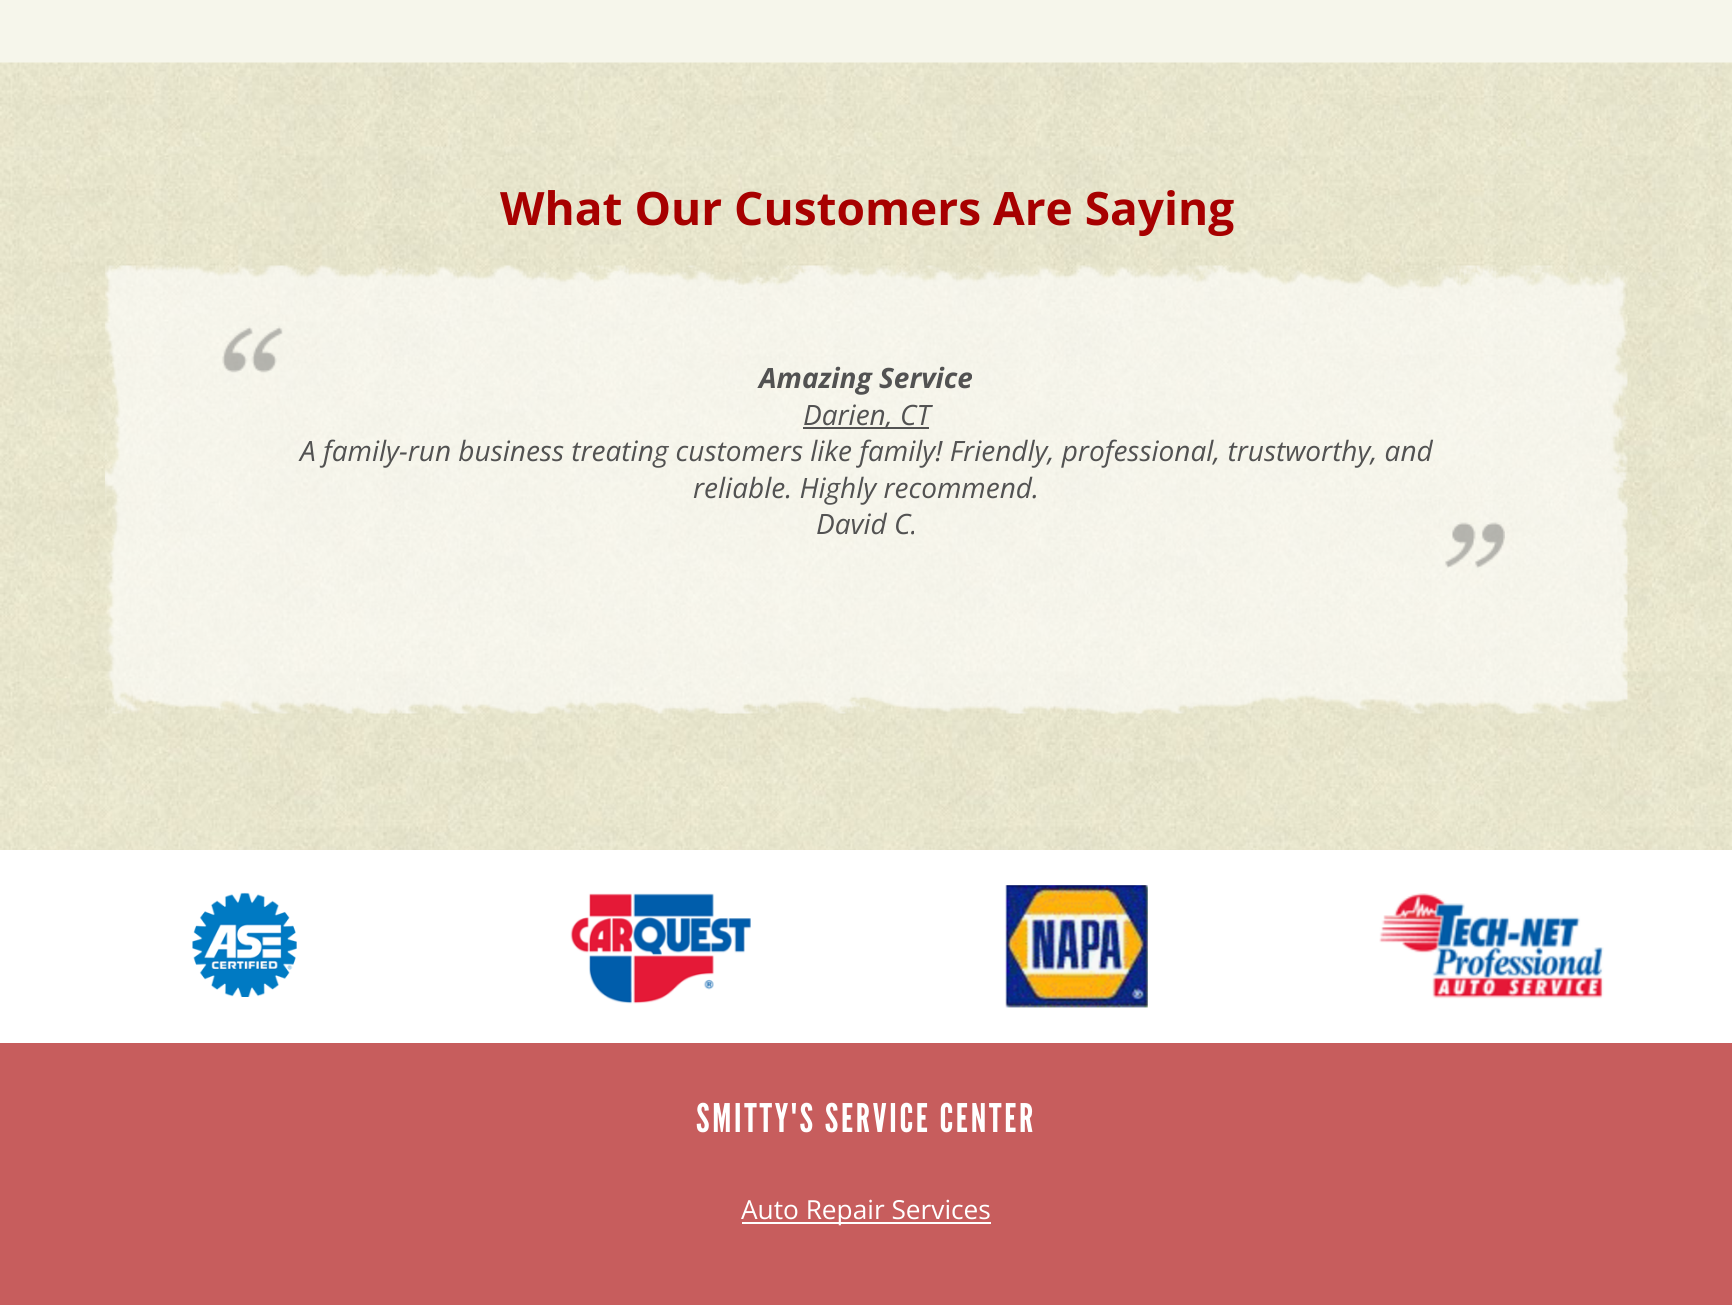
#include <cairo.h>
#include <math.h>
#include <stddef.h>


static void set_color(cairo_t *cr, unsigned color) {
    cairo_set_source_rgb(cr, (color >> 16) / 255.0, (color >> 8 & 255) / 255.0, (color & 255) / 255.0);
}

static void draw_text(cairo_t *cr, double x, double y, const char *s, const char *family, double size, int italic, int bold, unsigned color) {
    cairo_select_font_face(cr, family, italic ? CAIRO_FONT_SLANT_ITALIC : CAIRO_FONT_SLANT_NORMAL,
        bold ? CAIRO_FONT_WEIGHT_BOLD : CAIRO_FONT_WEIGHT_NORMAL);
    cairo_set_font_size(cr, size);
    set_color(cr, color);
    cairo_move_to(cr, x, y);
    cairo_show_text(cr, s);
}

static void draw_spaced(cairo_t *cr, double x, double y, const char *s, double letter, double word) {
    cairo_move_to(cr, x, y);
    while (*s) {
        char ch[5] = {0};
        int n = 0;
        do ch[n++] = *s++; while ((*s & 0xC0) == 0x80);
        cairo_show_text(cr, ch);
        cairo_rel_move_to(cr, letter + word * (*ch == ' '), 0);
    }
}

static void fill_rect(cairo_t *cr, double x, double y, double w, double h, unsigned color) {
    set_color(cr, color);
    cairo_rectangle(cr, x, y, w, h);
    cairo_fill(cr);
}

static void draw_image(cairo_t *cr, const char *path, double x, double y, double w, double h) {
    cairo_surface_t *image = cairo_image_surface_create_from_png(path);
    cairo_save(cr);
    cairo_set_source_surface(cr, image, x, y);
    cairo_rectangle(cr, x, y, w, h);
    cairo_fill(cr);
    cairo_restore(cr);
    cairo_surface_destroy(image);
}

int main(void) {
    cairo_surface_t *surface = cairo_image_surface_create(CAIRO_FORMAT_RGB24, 1732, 1305);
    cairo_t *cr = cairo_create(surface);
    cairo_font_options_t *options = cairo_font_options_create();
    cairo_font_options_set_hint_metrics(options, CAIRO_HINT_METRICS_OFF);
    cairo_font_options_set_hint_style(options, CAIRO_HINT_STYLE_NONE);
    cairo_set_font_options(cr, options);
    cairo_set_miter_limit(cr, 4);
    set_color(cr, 0xFFFFFF);
    cairo_paint(cr);
    fill_rect(cr, 0, 0, 1732, 63, 0xF6F6EB);
    draw_image(cr, "assets/img1.png", 0, 62, 1732, 788);
    draw_text(cr, 500, 225, "What Our Customers Are Saying", "Open Sans", 46, 0, 1, 0xA70000);
    draw_image(cr, "assets/img2.png", 105, 265, 1523, 449);
    draw_image(cr, "assets/img3.png", 222, 326, 61, 47);
    draw_text(cr, 759, 388, "Amazing Service", "Open Sans", 28, 1, 1, 0x525252);
    fill_rect(cr, 803, 427, 126, 2, 0x525252);
    draw_text(cr, 803, 425, "Darien, CT", "Open Sans", 28, 1, 0, 0x525252);
    draw_text(cr, 300, 461, "A family-run business treating customers like family! Friendly, professional, trustworthy, and", "Open Sans", 28, 1, 0, 0x525252);
    draw_text(cr, 693, 498, "reliable. Highly recommend.", "Open Sans", 28, 1, 0, 0x525252);
    draw_text(cr, 816, 534, "David C.", "Open Sans", 28, 1, 0, 0x525252);
    draw_image(cr, "assets/img4.png", 1445, 522, 60, 46);
    draw_image(cr, "assets/img5.png", 192, 892, 105, 105);
    draw_image(cr, "assets/img6.png", 570, 893, 181, 111);
    draw_image(cr, "assets/img7.png", 1005, 885, 143, 123);
    draw_image(cr, "assets/img8.png", 1379, 893, 225, 106);
    fill_rect(cr, 0, 1043, 1732, 262, 0xC75D5D);
    cairo_select_font_face(cr, "League Gothic", CAIRO_FONT_SLANT_NORMAL, CAIRO_FONT_WEIGHT_NORMAL);
    cairo_set_font_size(cr, 39.4);
    set_color(cr, 0xFFFFFF);
    draw_spaced(cr, 696, 1132, "SMITTY'S SERVICE CENTER", 2.75, 0);
    fill_rect(cr, 742, 1222, 249, 2, 0xFFFFFF);
    draw_text(cr, 741, 1219, "Auto Repair Services", "Open Sans", 26.25, 0, 0, 0xFFFFFF);
    cairo_surface_write_to_png(surface, "output.png");
    cairo_font_options_destroy(options);
    cairo_destroy(cr);
    cairo_surface_destroy(surface);
    return 0;
}
